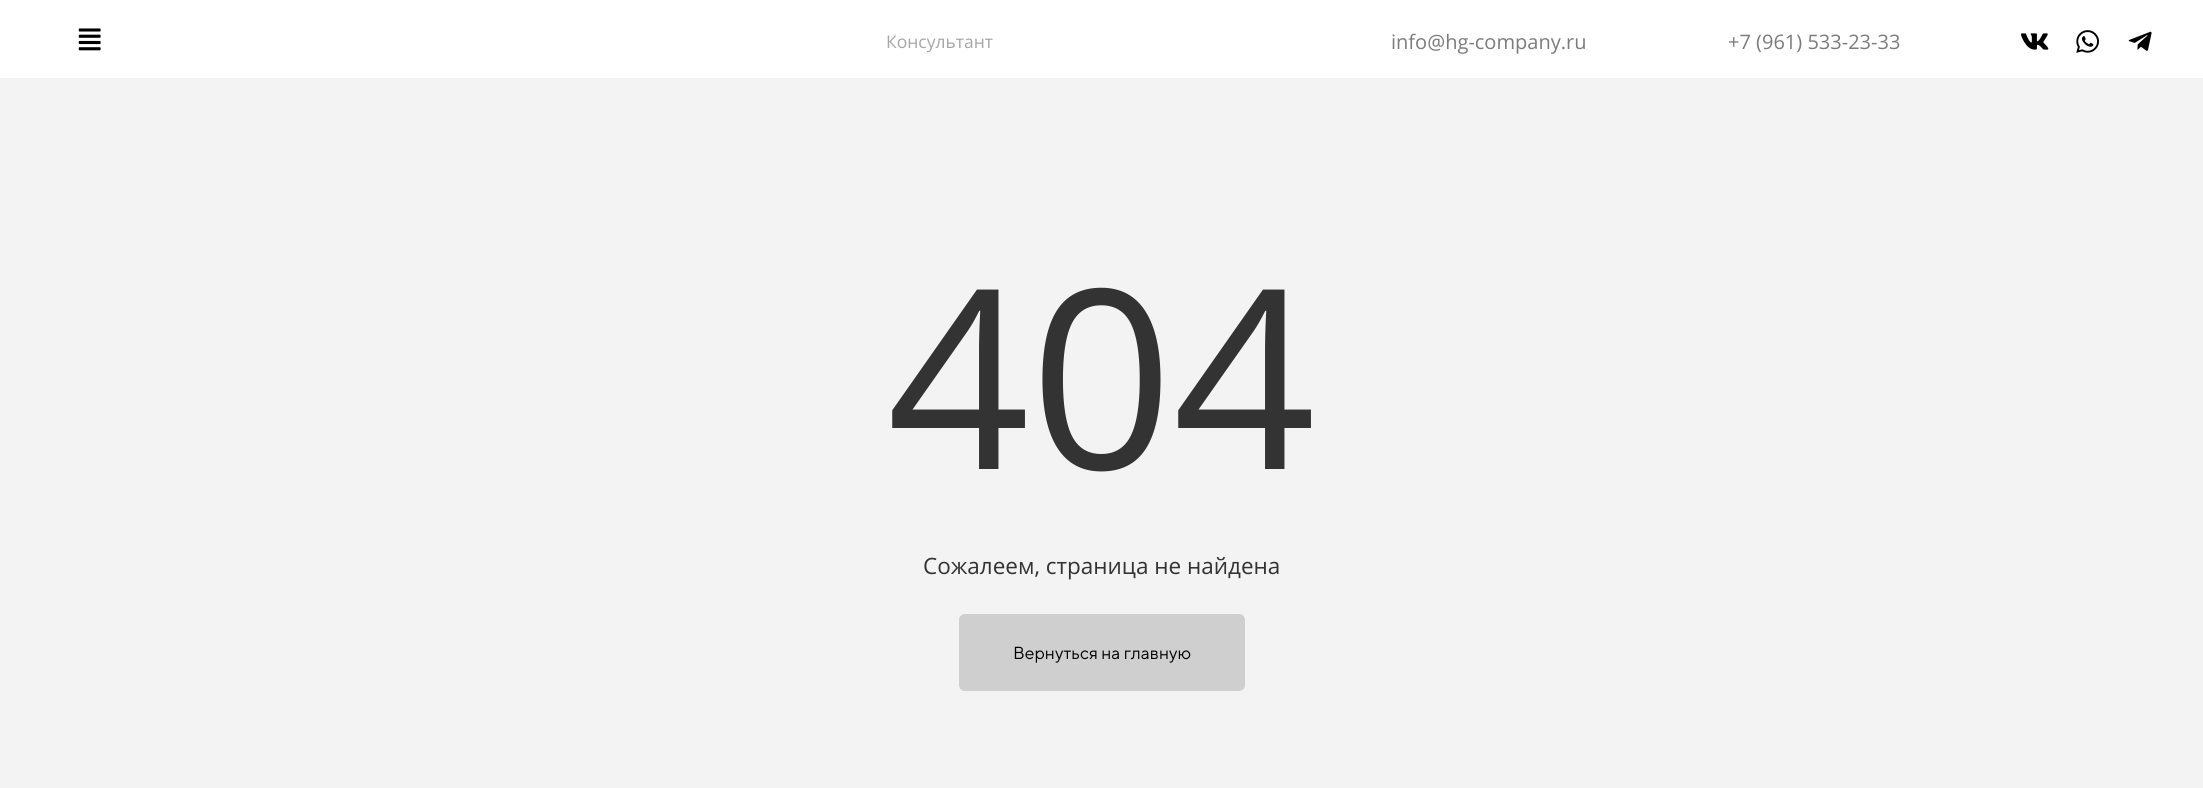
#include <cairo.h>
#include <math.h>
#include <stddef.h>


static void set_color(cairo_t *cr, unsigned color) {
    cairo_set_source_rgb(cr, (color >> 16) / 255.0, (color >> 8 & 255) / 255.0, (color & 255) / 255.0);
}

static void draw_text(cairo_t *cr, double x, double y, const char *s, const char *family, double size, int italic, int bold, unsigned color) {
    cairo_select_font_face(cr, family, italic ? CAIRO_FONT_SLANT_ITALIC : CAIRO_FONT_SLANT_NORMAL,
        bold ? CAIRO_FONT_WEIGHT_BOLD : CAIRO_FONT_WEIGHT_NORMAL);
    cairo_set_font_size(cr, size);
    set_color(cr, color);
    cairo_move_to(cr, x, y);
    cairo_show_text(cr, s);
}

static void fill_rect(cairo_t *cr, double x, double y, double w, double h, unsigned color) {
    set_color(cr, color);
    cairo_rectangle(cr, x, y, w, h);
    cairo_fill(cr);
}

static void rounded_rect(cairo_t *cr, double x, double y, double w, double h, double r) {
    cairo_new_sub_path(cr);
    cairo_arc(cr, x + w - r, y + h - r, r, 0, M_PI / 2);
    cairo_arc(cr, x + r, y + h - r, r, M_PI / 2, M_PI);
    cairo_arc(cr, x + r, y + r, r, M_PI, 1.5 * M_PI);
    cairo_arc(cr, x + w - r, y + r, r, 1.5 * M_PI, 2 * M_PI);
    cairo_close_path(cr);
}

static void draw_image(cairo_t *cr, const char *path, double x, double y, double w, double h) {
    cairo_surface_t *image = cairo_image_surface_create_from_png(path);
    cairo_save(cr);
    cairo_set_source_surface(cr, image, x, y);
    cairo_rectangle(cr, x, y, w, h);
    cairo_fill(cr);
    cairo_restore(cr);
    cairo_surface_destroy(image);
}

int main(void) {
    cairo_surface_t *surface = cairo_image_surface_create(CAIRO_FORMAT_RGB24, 2203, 788);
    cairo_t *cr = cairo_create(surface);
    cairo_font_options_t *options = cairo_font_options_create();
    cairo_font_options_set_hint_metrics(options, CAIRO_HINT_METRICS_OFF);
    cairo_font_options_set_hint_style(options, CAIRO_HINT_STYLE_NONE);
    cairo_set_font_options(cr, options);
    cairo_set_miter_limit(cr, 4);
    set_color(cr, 0xFFFFFF);
    cairo_paint(cr);
    draw_image(cr, "assets/img1.png", 78, 28, 23, 23);
    draw_text(cr, 886, 48, "Консультант", "Open Sans", 17.5, 0, 0, 0xA6A6A6);
    draw_text(cr, 1391, 49, "info@hg-company.ru", "Open Sans", 20, 0, 0, 0x7C7C7C);
    draw_text(cr, 1728, 49, "+7 (961) 533-23-33", "Open Sans", 20, 0, 0, 0x7C7C7C);
    draw_image(cr, "assets/img2.png", 2021, 33, 28, 17);
    draw_image(cr, "assets/img3.png", 2076, 30, 23, 23);
    draw_image(cr, "assets/img4.png", 2128, 31, 24, 20);
    fill_rect(cr, 0, 78, 2203, 710, 0xF3F3F3);
    draw_text(cr, 887, 469, "404", "Open Sans", 250, 0, 0, 0x333333);
    draw_text(cr, 923, 574, "Сожалеем, страница не найдена", "Open Sans", 22.5, 0, 0, 0x333333);
    set_color(cr, 0xCFCFCF);
    rounded_rect(cr, 959, 614, 286, 77, 6);
    cairo_fill(cr);
    draw_text(cr, 1013, 659, "Вернуться на главную", "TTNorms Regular", 17.5, 0, 0, 0x000000);
    cairo_surface_write_to_png(surface, "output.png");
    cairo_font_options_destroy(options);
    cairo_destroy(cr);
    cairo_surface_destroy(surface);
    return 0;
}
